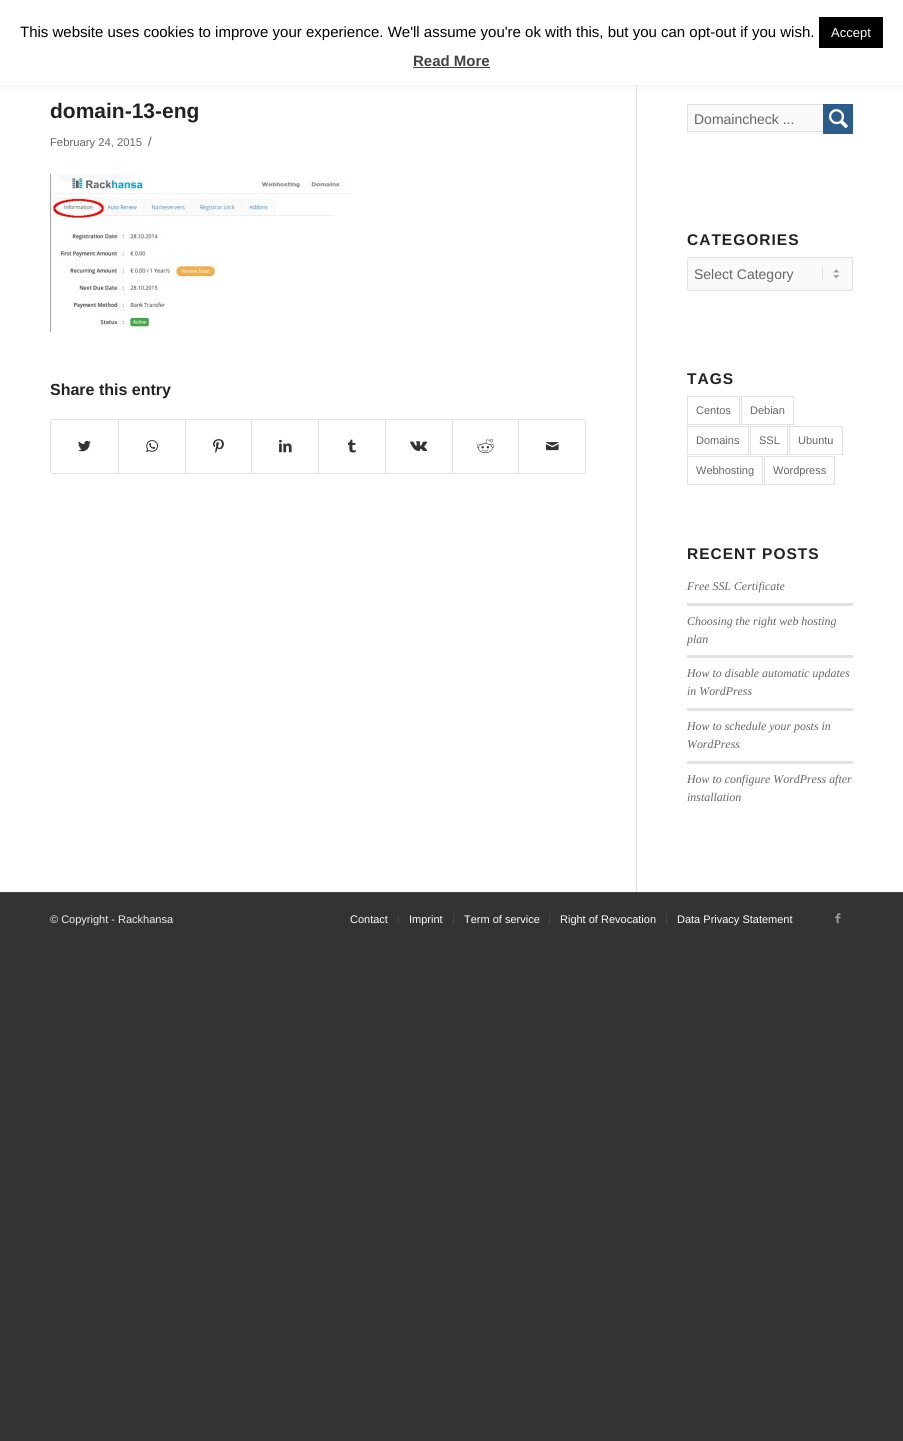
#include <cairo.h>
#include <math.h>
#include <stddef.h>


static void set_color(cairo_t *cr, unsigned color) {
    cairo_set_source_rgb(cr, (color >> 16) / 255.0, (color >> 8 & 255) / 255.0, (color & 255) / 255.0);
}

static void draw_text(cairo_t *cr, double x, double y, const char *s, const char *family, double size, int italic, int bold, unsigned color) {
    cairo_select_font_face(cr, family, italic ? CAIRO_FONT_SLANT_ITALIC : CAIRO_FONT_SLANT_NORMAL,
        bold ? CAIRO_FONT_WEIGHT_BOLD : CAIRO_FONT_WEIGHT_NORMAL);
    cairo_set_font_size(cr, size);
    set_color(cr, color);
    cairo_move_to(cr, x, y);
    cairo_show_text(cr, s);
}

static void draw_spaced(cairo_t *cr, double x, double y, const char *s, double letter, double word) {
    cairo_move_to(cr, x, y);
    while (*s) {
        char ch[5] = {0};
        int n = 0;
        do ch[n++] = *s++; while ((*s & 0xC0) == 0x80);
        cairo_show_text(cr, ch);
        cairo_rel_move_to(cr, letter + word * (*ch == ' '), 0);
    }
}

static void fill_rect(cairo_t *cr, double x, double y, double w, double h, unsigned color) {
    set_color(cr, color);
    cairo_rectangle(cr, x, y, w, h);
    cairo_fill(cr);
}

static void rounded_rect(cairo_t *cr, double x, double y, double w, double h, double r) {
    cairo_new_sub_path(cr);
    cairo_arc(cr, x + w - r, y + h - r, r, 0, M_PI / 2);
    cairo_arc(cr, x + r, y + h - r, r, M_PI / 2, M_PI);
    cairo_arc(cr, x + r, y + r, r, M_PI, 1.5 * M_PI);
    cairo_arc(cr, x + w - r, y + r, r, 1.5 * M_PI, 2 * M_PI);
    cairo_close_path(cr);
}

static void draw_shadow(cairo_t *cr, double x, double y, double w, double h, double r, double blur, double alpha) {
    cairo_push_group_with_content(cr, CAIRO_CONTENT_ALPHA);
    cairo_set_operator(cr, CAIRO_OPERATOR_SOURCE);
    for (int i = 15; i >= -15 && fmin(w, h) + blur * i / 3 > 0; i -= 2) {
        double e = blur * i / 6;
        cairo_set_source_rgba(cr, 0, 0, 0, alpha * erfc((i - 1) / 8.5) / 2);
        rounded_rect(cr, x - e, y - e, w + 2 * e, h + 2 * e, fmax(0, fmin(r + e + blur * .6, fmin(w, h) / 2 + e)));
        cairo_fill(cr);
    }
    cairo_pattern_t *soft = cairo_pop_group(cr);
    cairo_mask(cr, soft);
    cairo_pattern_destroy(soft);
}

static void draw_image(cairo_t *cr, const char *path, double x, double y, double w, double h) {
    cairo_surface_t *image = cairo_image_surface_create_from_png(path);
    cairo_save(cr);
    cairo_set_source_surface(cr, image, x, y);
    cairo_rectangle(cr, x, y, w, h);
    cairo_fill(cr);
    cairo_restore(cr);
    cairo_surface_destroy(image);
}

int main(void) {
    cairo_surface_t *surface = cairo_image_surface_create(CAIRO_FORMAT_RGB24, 903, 1441);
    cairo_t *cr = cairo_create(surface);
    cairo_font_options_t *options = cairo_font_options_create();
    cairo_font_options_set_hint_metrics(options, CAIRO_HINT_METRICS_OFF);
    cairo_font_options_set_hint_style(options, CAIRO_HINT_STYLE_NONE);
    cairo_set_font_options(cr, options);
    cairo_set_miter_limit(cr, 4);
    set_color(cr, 0x333333);
    cairo_paint(cr);
    fill_rect(cr, 0, 85, 903, 807, 0xFFFFFF);
    fill_rect(cr, 636, 85, 1, 808, 0xE1E1E1);
    set_color(cr, 0xACABAB);
    draw_shadow(cr, 0, -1, 903, 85, 0, 5, 0.3);
    fill_rect(cr, 0, 0, 903, 85, 0xFFFFFF);
    draw_text(cr, 20, 37, "This website uses cookies to improve your experience. We'll assume you're ok with this, but you can opt-out if you wish.", "Liberation Sans", 15, 0, 0, 0x000000);
    fill_rect(cr, 819, 17, 64, 31, 0x000000);
    draw_text(cr, 831, 37, "Accept", "Liberation Sans", 13, 0, 0, 0xFFFFFF);
    draw_text(cr, 413, 66, "Read More", "Liberation Sans", 15, 0, 1, 0x444444);
    fill_rect(cr, 413, 67, 77, 1, 0x444444);
    draw_text(cr, 50, 118, "domain-13-eng", "Liberation Sans", 21, 0, 1, 0x222222);
    draw_text(cr, 50, 146, "February 24, 2015", "Liberation Sans", 11.25, 0, 0, 0x666666);
    draw_text(cr, 148, 146, "/", "Liberation Sans", 13, 0, 0, 0x666666);
    draw_image(cr, "assets/img1.png", 50, 174, 300, 158);
    draw_text(cr, 50, 395, "Share this entry", "Liberation Sans", 16, 0, 1, 0x222222);
    rounded_rect(cr, 50.5, 419.5, 535, 54, 2.5);
    set_color(cr, 0xE1E1E1);
    cairo_set_line_width(cr, 1);
    cairo_stroke(cr);
    draw_image(cr, "assets/img2.png", 78, 440, 13, 12);
    fill_rect(cr, 118, 420, 1, 53, 0xE1E1E1);
    draw_image(cr, "assets/img3.png", 146, 440, 12, 13);
    fill_rect(cr, 185, 420, 1, 53, 0xE1E1E1);
    draw_image(cr, "assets/img4.png", 213, 439, 11, 14);
    fill_rect(cr, 251, 420, 1, 53, 0xE1E1E1);
    draw_image(cr, "assets/img5.png", 279, 439, 13, 14);
    fill_rect(cr, 318, 420, 1, 53, 0xE1E1E1);
    draw_image(cr, "assets/img6.png", 348, 439, 8, 14);
    fill_rect(cr, 385, 420, 1, 53, 0xE1E1E1);
    draw_image(cr, "assets/img7.png", 410, 441, 17, 10);
    fill_rect(cr, 452, 420, 1, 53, 0xE1E1E1);
    draw_image(cr, "assets/img8.png", 477, 439, 17, 15);
    fill_rect(cr, 518, 420, 1, 53, 0xE1E1E1);
    draw_image(cr, "assets/img9.png", 546, 442, 13, 9);
    fill_rect(cr, 688, 105, 135, 26, 0xFAFAFA);
    cairo_rectangle(cr, 687.5, 104.5, 165, 27);
    set_color(cr, 0xE1E1E1);
    cairo_stroke(cr);
    draw_text(cr, 694, 124, "Domaincheck ...", "Liberation Sans", 14, 0, 0, 0x666666);
    fill_rect(cr, 823, 104, 30, 30, 0x2D5C88);
    draw_image(cr, "assets/img10.png", 829, 109, 19, 20);
    cairo_select_font_face(cr, "Liberation Sans", CAIRO_FONT_SLANT_NORMAL, CAIRO_FONT_WEIGHT_BOLD);
    cairo_set_font_size(cr, 15.5);
    set_color(cr, 0x222222);
    draw_spaced(cr, 687, 245, "CATEGORIES", 1, 0);
    set_color(cr, 0xFAFAFA);
    rounded_rect(cr, 687, 257, 166, 34, 2);
    cairo_fill(cr);
    draw_image(cr, "assets/img11.png", 822, 267, 18, 13);
    rounded_rect(cr, 687.5, 257.5, 165, 33, 1.5);
    set_color(cr, 0xE1E1E1);
    cairo_stroke(cr);
    draw_text(cr, 694, 279, "Select Category", "Liberation Sans", 14, 0, 0, 0x666666);
    cairo_select_font_face(cr, "Liberation Sans", CAIRO_FONT_SLANT_NORMAL, CAIRO_FONT_WEIGHT_BOLD);
    cairo_set_font_size(cr, 15.5);
    set_color(cr, 0x222222);
    draw_spaced(cr, 687, 384, "TAGS", 1, 0);
    cairo_rectangle(cr, 687.5, 396.5, 52, 28);
    set_color(cr, 0xE1E1E1);
    cairo_stroke(cr);
    draw_text(cr, 696, 414, "Centos", "Liberation Sans", 11, 0, 0, 0x666666);
    cairo_rectangle(cr, 741.5, 396.5, 52, 28);
    set_color(cr, 0xE1E1E1);
    cairo_stroke(cr);
    draw_text(cr, 750, 414, "Debian", "Liberation Sans", 11, 0, 0, 0x666666);
    cairo_rectangle(cr, 687.5, 426.5, 61, 28);
    set_color(cr, 0xE1E1E1);
    cairo_stroke(cr);
    draw_text(cr, 696, 444, "Domains", "Liberation Sans", 11, 0, 0, 0x666666);
    cairo_rectangle(cr, 750.5, 426.5, 37, 28);
    set_color(cr, 0xE1E1E1);
    cairo_stroke(cr);
    draw_text(cr, 759, 444, "SSL", "Liberation Sans", 11, 0, 0, 0x666666);
    cairo_rectangle(cr, 789.5, 426.5, 53, 28);
    set_color(cr, 0xE1E1E1);
    cairo_stroke(cr);
    draw_text(cr, 798, 444, "Ubuntu", "Liberation Sans", 11, 0, 0, 0x666666);
    cairo_rectangle(cr, 687.5, 456.5, 75, 28);
    set_color(cr, 0xE1E1E1);
    cairo_stroke(cr);
    draw_text(cr, 696, 474, "Webhosting", "Liberation Sans", 11, 0, 0, 0x666666);
    cairo_rectangle(cr, 764.5, 456.5, 70, 28);
    set_color(cr, 0xE1E1E1);
    cairo_stroke(cr);
    draw_text(cr, 773, 474, "Wordpress", "Liberation Sans", 11, 0, 0, 0x666666);
    cairo_select_font_face(cr, "Liberation Sans", CAIRO_FONT_SLANT_NORMAL, CAIRO_FONT_WEIGHT_BOLD);
    cairo_set_font_size(cr, 15.5);
    set_color(cr, 0x222222);
    draw_spaced(cr, 687, 559, "RECENT POSTS", 1, 0);
    draw_text(cr, 687, 590, "Free SSL Certificate", "Liberation Serif", 11.9, 1, 0, 0x666666);
    fill_rect(cr, 687, 603, 166, 3, 0xE1E1E1);
    draw_text(cr, 687, 625, "Choosing the right web hosting", "Liberation Serif", 11.9, 1, 0, 0x666666);
    draw_text(cr, 687, 643, "plan", "Liberation Serif", 11.9, 1, 0, 0x666666);
    fill_rect(cr, 687, 655, 166, 3, 0xE1E1E1);
    draw_text(cr, 687, 677, "How to disable automatic updates", "Liberation Serif", 11.9, 1, 0, 0x666666);
    draw_text(cr, 687, 695, "in WordPress", "Liberation Serif", 11.9, 1, 0, 0x666666);
    fill_rect(cr, 687, 708, 166, 3, 0xE1E1E1);
    draw_text(cr, 687, 730, "How to schedule your posts in", "Liberation Serif", 11.9, 1, 0, 0x666666);
    draw_text(cr, 687, 748, "WordPress", "Liberation Serif", 11.9, 1, 0, 0x666666);
    fill_rect(cr, 687, 761, 166, 3, 0xE1E1E1);
    draw_text(cr, 687, 783, "How to configure WordPress after", "Liberation Serif", 11.9, 1, 0, 0x666666);
    draw_text(cr, 687, 801, "installation", "Liberation Serif", 11.9, 1, 0, 0x666666);
    fill_rect(cr, 0, 892, 903, 1, 0x444444);
    draw_text(cr, 50, 923, "© Copyright - Rackhansa", "Liberation Sans", 11, 0, 0, 0xEEEEEE);
    draw_text(cr, 350, 923, "Contact", "Liberation Sans", 11, 0, 0, 0xFFFFFF);
    fill_rect(cr, 398, 914, 1, 10, 0x444444);
    draw_text(cr, 409, 923, "Imprint", "Liberation Sans", 11, 0, 0, 0xFFFFFF);
    fill_rect(cr, 453, 914, 1, 10, 0x444444);
    draw_text(cr, 464, 923, "Term of service", "Liberation Sans", 11, 0, 0, 0xFFFFFF);
    fill_rect(cr, 549, 914, 1, 10, 0x444444);
    draw_text(cr, 560, 923, "Right of Revocation", "Liberation Sans", 11, 0, 0, 0xFFFFFF);
    fill_rect(cr, 666, 914, 1, 10, 0x444444);
    draw_text(cr, 677, 923, "Data Privacy Statement", "Liberation Sans", 11, 0, 0, 0xFFFFFF);
    draw_image(cr, "assets/img12.png", 835, 913, 6, 11);
    cairo_surface_write_to_png(surface, "output.png");
    cairo_font_options_destroy(options);
    cairo_destroy(cr);
    cairo_surface_destroy(surface);
    return 0;
}
